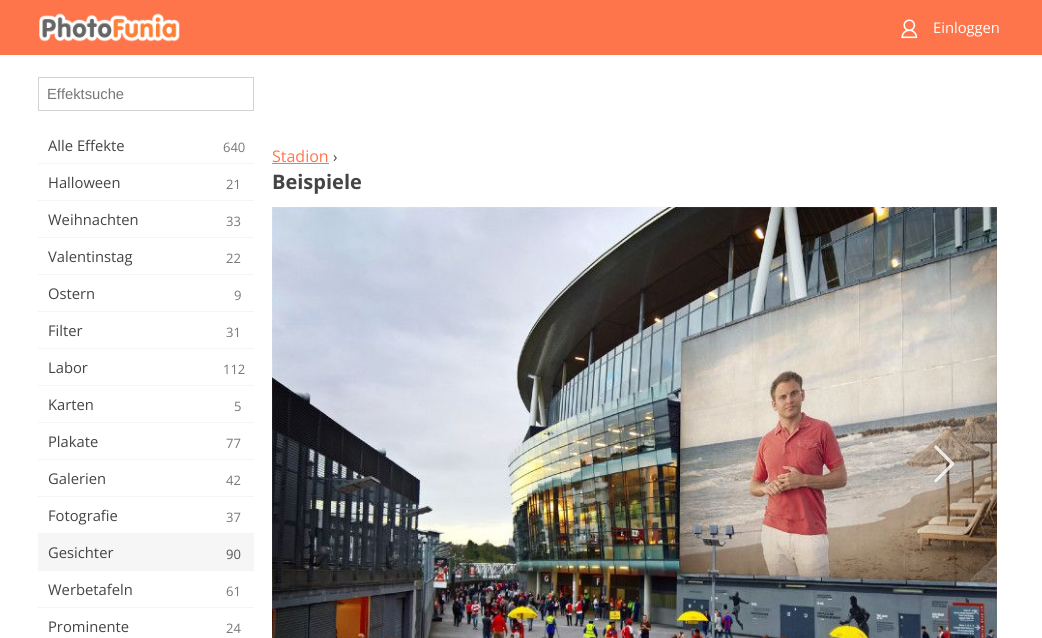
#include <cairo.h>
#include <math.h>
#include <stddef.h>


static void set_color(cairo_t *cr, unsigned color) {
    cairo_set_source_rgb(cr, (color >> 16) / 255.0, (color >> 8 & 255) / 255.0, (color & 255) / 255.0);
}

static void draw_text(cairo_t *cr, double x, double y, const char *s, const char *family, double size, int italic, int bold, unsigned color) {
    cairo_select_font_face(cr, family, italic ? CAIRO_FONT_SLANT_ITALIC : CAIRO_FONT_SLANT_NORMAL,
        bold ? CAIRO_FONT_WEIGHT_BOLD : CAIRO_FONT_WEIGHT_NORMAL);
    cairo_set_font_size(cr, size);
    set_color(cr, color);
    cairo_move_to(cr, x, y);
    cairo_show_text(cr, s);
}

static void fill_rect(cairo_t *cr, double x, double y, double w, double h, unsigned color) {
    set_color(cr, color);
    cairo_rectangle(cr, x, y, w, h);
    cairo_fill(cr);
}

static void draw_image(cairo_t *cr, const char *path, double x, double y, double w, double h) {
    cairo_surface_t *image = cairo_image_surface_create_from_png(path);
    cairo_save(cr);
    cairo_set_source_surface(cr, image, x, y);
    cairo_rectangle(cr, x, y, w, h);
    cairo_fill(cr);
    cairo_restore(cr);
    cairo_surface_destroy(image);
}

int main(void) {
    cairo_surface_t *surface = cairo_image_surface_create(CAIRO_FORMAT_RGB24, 1042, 638);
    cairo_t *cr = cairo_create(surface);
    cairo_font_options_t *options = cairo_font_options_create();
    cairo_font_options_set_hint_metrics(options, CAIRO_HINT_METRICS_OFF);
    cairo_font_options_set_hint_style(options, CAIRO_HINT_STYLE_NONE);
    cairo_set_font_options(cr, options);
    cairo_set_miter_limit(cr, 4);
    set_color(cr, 0xFFFFFF);
    cairo_paint(cr);
    fill_rect(cr, 0, 0, 1042, 55, 0xFF754B);
    draw_image(cr, "assets/img1.png", 39, 13, 141, 29);
    draw_image(cr, "assets/img2.png", 901, 19, 17, 20);
    draw_text(cr, 933, 33, "Einloggen", "Open Sans", 14.75, 0, 0, 0xFFFFFF);
    cairo_rectangle(cr, 38.5, 77.5, 215, 33);
    set_color(cr, 0xD3D3D3);
    cairo_set_line_width(cr, 1);
    cairo_stroke(cr);
    draw_text(cr, 47, 99, "Effektsuche", "Liberation Sans", 14.75, 0, 0, 0x777777);
    draw_text(cr, 48, 151, "Alle Effekte", "Open Sans", 14.75, 0, 0, 0x444444);
    draw_text(cr, 223, 152, "640", "Open Sans", 13, 0, 0, 0x777777);
    fill_rect(cr, 38, 163, 216, 1, 0xF5F5F5);
    draw_text(cr, 48, 188, "Halloween", "Open Sans", 14.75, 0, 0, 0x444444);
    draw_text(cr, 226, 189, "21", "Open Sans", 13, 0, 0, 0x777777);
    fill_rect(cr, 38, 200, 216, 1, 0xF5F5F5);
    draw_text(cr, 48, 225, "Weihnachten", "Open Sans", 14.75, 0, 0, 0x444444);
    draw_text(cr, 226, 226, "33", "Open Sans", 13, 0, 0, 0x777777);
    fill_rect(cr, 38, 237, 216, 1, 0xF5F5F5);
    draw_text(cr, 48, 262, "Valentinstag", "Open Sans", 14.75, 0, 0, 0x444444);
    draw_text(cr, 226, 263, "22", "Open Sans", 13, 0, 0, 0x777777);
    fill_rect(cr, 38, 274, 216, 1, 0xF5F5F5);
    draw_text(cr, 48, 299, "Ostern", "Open Sans", 14.75, 0, 0, 0x444444);
    draw_text(cr, 234, 300, "9", "Open Sans", 13, 0, 0, 0x777777);
    fill_rect(cr, 38, 311, 216, 1, 0xF5F5F5);
    draw_text(cr, 48, 336, "Filter", "Open Sans", 14.75, 0, 0, 0x444444);
    draw_text(cr, 226, 337, "31", "Open Sans", 13, 0, 0, 0x777777);
    fill_rect(cr, 38, 348, 216, 1, 0xF5F5F5);
    draw_text(cr, 48, 373, "Labor", "Open Sans", 14.75, 0, 0, 0x444444);
    draw_text(cr, 223, 374, "112", "Open Sans", 13, 0, 0, 0x777777);
    fill_rect(cr, 38, 385, 216, 1, 0xF5F5F5);
    draw_text(cr, 48, 410, "Karten", "Open Sans", 14.75, 0, 0, 0x444444);
    draw_text(cr, 234, 411, "5", "Open Sans", 13, 0, 0, 0x777777);
    fill_rect(cr, 38, 422, 216, 1, 0xF5F5F5);
    draw_text(cr, 48, 447, "Plakate", "Open Sans", 14.75, 0, 0, 0x444444);
    draw_text(cr, 226, 448, "77", "Open Sans", 13, 0, 0, 0x777777);
    fill_rect(cr, 38, 459, 216, 1, 0xF5F5F5);
    draw_text(cr, 48, 484, "Galerien", "Open Sans", 14.75, 0, 0, 0x444444);
    draw_text(cr, 226, 485, "42", "Open Sans", 13, 0, 0, 0x777777);
    fill_rect(cr, 38, 496, 216, 1, 0xF5F5F5);
    draw_text(cr, 48, 521, "Fotografie", "Open Sans", 14.75, 0, 0, 0x444444);
    draw_text(cr, 226, 522, "37", "Open Sans", 13, 0, 0, 0x777777);
    fill_rect(cr, 38, 533, 216, 1, 0xF5F5F5);
    fill_rect(cr, 38, 534, 216, 36, 0xF6F6F6);
    draw_text(cr, 48, 558, "Gesichter", "Open Sans", 14.75, 0, 0, 0x444444);
    draw_text(cr, 226, 559, "90", "Open Sans", 13, 0, 0, 0x555555);
    fill_rect(cr, 38, 570, 216, 1, 0xF5F5F5);
    draw_text(cr, 48, 595, "Werbetafeln", "Open Sans", 14.75, 0, 0, 0x444444);
    draw_text(cr, 226, 596, "61", "Open Sans", 13, 0, 0, 0x777777);
    fill_rect(cr, 38, 607, 216, 1, 0xF5F5F5);
    draw_text(cr, 48, 632, "Prominente", "Open Sans", 14.75, 0, 0, 0x444444);
    draw_text(cr, 226, 633, "24", "Open Sans", 13, 0, 0, 0x777777);
    draw_text(cr, 272, 162, "Stadion", "Open Sans", 16, 0, 0, 0xFF754B);
    fill_rect(cr, 272, 163, 57, 1, 0xFF754B);
    draw_text(cr, 333, 162, "›", "Open Sans", 14.75, 0, 0, 0x444444);
    draw_text(cr, 272, 189, "Beispiele", "Open Sans", 20, 0, 1, 0x444444);
    draw_image(cr, "assets/img3.png", 272, 207, 725, 431);
    draw_image(cr, "assets/img4.png", 933, 444, 22, 39);
    cairo_surface_write_to_png(surface, "output.png");
    cairo_font_options_destroy(options);
    cairo_destroy(cr);
    cairo_surface_destroy(surface);
    return 0;
}
